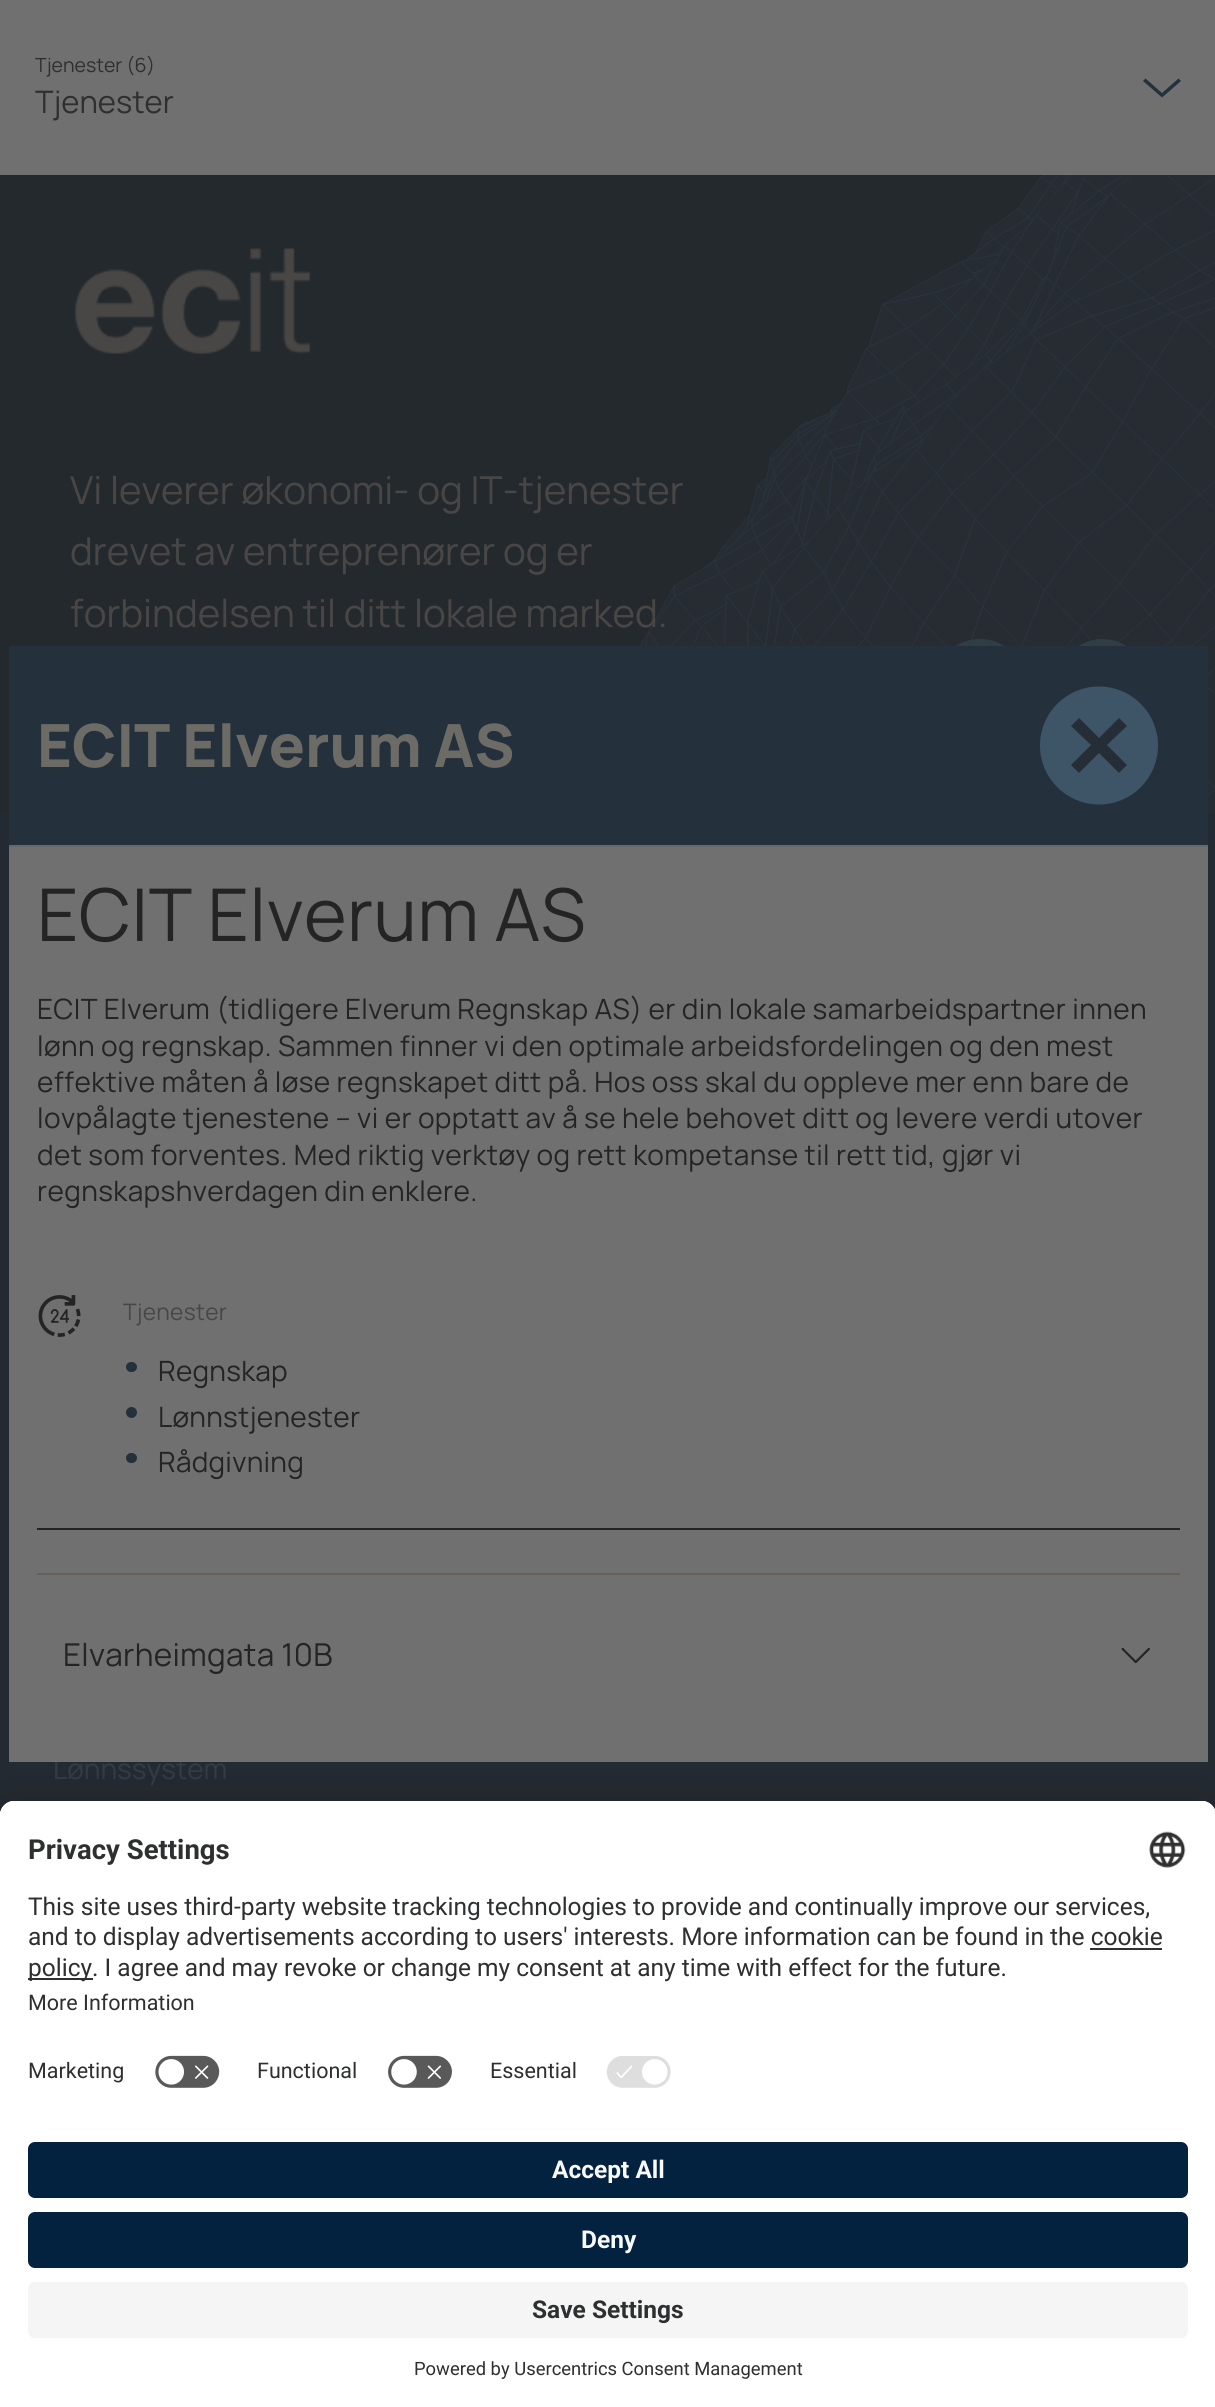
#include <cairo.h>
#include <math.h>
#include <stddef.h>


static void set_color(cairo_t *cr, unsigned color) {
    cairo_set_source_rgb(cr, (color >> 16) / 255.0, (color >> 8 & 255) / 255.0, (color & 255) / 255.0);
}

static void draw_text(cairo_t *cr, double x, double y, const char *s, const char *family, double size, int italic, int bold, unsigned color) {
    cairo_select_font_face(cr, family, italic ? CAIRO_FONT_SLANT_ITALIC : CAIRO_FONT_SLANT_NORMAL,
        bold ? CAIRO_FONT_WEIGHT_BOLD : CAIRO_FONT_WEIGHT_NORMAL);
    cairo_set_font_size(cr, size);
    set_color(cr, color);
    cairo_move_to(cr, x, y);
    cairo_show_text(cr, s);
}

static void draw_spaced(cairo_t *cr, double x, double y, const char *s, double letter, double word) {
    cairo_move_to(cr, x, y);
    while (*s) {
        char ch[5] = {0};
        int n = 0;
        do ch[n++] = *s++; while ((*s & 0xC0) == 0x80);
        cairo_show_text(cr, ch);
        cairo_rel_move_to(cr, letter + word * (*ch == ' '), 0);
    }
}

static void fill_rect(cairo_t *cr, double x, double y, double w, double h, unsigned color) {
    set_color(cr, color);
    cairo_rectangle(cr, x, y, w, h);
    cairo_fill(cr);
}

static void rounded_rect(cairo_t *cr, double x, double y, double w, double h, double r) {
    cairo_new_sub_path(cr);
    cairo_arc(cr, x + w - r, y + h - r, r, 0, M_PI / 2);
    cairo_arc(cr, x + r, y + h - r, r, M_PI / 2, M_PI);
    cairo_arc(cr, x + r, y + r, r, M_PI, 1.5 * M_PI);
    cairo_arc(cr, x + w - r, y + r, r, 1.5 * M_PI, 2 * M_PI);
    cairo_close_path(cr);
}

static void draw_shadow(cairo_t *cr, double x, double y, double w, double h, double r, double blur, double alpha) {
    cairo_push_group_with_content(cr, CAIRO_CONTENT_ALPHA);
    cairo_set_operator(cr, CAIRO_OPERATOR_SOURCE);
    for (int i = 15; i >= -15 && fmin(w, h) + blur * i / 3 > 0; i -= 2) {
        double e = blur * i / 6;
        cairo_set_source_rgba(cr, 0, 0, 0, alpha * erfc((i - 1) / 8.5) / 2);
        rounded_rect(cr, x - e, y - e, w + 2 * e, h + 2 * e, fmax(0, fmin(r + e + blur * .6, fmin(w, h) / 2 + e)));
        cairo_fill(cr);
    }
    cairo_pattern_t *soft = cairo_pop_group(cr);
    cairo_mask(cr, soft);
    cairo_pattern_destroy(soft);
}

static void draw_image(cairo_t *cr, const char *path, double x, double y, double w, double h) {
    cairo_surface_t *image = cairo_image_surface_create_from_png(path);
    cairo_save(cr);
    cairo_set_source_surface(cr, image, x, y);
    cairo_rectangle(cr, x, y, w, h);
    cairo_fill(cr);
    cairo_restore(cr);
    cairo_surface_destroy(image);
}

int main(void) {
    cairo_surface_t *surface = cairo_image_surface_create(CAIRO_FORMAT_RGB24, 1215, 2407);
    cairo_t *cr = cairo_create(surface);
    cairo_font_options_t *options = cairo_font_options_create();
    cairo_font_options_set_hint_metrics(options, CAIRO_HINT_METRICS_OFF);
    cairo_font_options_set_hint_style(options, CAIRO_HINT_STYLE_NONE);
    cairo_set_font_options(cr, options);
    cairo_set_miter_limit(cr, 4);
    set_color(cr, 0x242A31);
    cairo_paint(cr);
    fill_rect(cr, 0, 0, 1215, 175, 0x707070);
    draw_text(cr, 35, 72, "Tjenester (6)", "Manrope", 19.5, 0, 0, 0x2E2F30);
    draw_text(cr, 35, 113, "Tjenester", "Manrope", 31, 0, 0, 0x2E2F30);
    set_color(cr, 0x24313D);
    cairo_set_fill_rule(cr, CAIRO_FILL_RULE_EVEN_ODD);
    cairo_new_path(cr);
    cairo_move_to(cr, 1162, 93);
    cairo_line_to(cr, 1178.5, 78.5);
    cairo_line_to(cr, 1181, 81);
    cairo_line_to(cr, 1162, 97.5);
    cairo_line_to(cr, 1143, 81);
    cairo_line_to(cr, 1145.5, 78.5);
    cairo_close_path(cr);
    cairo_fill(cr);
    fill_rect(cr, 0, 175, 1215, 639, 0x24292D);
    draw_image(cr, "assets/img1.png", 74, 248, 237, 106);
    draw_image(cr, "assets/img2.png", 639, 175, 576, 639);
    draw_text(cr, 70, 504, "Vi leverer økonomi- og IT-tjenester", "Manrope", 38.5, 0, 0, 0x484745);
    draw_text(cr, 70, 565, "drevet av entreprenører og er", "Manrope", 38.5, 0, 0, 0x484745);
    draw_text(cr, 70, 627, "forbindelsen til ditt lokale marked.", "Manrope", 38.5, 0, 0, 0x484745);
    set_color(cr, 0x313D46);
    rounded_rect(cr, 936, 639, 88, 87, 43.5);
    cairo_fill(cr);
    cairo_arc(cr, 1102.5, 682.5, 43.5, 0, 2 * M_PI);
    cairo_fill(cr);
    draw_text(cr, 53, 1779, "Lønnssystem", "Manrope", 28, 0, 0, 0x313D46);
    fill_rect(cr, 9, 646, 1199, 199, 0x24313D);
    fill_rect(cr, 9, 845, 1199, 2, 0x666869);
    draw_text(cr, 37, 767, "ECIT Elverum AS", "Manrope ExtraBold", 59.5, 0, 0, 0x6D6B66);
    set_color(cr, 0x3E5568);
    cairo_new_path(cr);
    cairo_arc(cr, 1099, 745.5, 59, 0, 2 * M_PI);
    cairo_fill(cr);
    set_color(cr, 0x252E37);
    cairo_new_path(cr);
    cairo_move_to(cr, 1079, 718);
    cairo_line_to(cr, 1099, 738);
    cairo_line_to(cr, 1119, 718);
    cairo_line_to(cr, 1127, 726);
    cairo_line_to(cr, 1107, 745);
    cairo_line_to(cr, 1127, 765);
    cairo_line_to(cr, 1119, 773);
    cairo_line_to(cr, 1099, 753);
    cairo_line_to(cr, 1079, 773);
    cairo_line_to(cr, 1071, 765);
    cairo_line_to(cr, 1091, 745);
    cairo_line_to(cr, 1071, 726);
    cairo_close_path(cr);
    cairo_fill(cr);
    fill_rect(cr, 9, 847, 1199, 915, 0x707070);
    fill_rect(cr, 37, 1528, 1143, 2, 0x242424);
    cairo_select_font_face(cr, "Manrope", CAIRO_FONT_SLANT_NORMAL, CAIRO_FONT_WEIGHT_NORMAL);
    cairo_set_font_size(cr, 72.75);
    draw_spaced(cr, 37, 941, "ECIT Elverum AS", 0.4, 0);
    cairo_set_font_size(cr, 28);
    draw_spaced(cr, 37, 1019, "ECIT Elverum (tidligere Elverum Regnskap AS) er din lokale samarbeidspartner innen", 0.4, 0);
    draw_spaced(cr, 37, 1056, "lønn og regnskap. Sammen finner vi den optimale arbeidsfordelingen og den mest", 0.4, 0);
    draw_spaced(cr, 37, 1092, "effektive måten å løse regnskapet ditt på. Hos oss skal du oppleve mer enn bare de", 0.4, 0);
    draw_spaced(cr, 37, 1128, "lovpålagte tjenestene – vi er opptatt av å se hele behovet ditt og levere verdi utover", 0.4, 0);
    draw_spaced(cr, 37, 1165, "det som forventes. Med riktig verktøy og rett kompetanse til rett tid, gjør vi", 0.4, 0);
    draw_spaced(cr, 37, 1201, "regnskapshverdagen din enklere.", 0.4, 0);
    draw_image(cr, "assets/img3.png", 38, 1295, 43, 42);
    cairo_set_font_size(cr, 22.75);
    set_color(cr, 0x484745);
    draw_spaced(cr, 123, 1320, "Tjenester", 0.25, 0);
    set_color(cr, 0x24313D);
    rounded_rect(cr, 126, 1362, 11, 10, 5);
    cairo_fill(cr);
    cairo_set_font_size(cr, 28);
    set_color(cr, 0x242424);
    draw_spaced(cr, 158, 1381, "Regnskap", 0.25, 0);
    set_color(cr, 0x24313D);
    cairo_new_path(cr);
    cairo_arc(cr, 131.5, 1412.5, 5.5, 0, 2 * M_PI);
    cairo_fill(cr);
    set_color(cr, 0x242424);
    draw_spaced(cr, 158, 1427, "Lønnstjenester", 0.25, 0);
    set_color(cr, 0x24313D);
    rounded_rect(cr, 126, 1453, 11, 10, 5);
    cairo_fill(cr);
    set_color(cr, 0x242424);
    draw_spaced(cr, 158, 1472, "Rådgivning", 0.25, 0);
    fill_rect(cr, 37, 1573, 1143, 2, 0x65625A);
    cairo_set_font_size(cr, 31.5);
    set_color(cr, 0x242424);
    draw_spaced(cr, 63, 1666, "Elvarheimgata 10B", 0.3, 0);
    draw_image(cr, "assets/img4.png", 1121, 1647, 29, 17);
    set_color(cr, 0x000000);
    draw_shadow(cr, 0, 1810, 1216, 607, 14, 23, 0.22);
    set_color(cr, 0xFFFFFF);
    cairo_new_path(cr);
    cairo_move_to(cr, 14, 1801);
    cairo_line_to(cr, 1202, 1801);
    cairo_curve_to(cr, 1209.5, 1801, 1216, 1807.5, 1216, 1815);
    cairo_line_to(cr, 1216, 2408);
    cairo_line_to(cr, 0, 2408);
    cairo_line_to(cr, 0, 1815);
    cairo_curve_to(cr, 0, 1807.5, 6.5, 1801, 14, 1801);
    cairo_close_path(cr);
    cairo_fill(cr);
    cairo_new_path(cr);
    cairo_move_to(cr, 14, 1801);
    cairo_line_to(cr, 1202, 1801);
    cairo_curve_to(cr, 1209.5, 1801, 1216, 1807.5, 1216, 1815);
    cairo_line_to(cr, 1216, 2121);
    cairo_line_to(cr, 0, 2121);
    cairo_line_to(cr, 0, 1815);
    cairo_curve_to(cr, 0, 1807.5, 6.5, 1801, 14, 1801);
    cairo_close_path(cr);
    cairo_fill(cr);
    cairo_new_path(cr);
    cairo_move_to(cr, 14, 1801);
    cairo_line_to(cr, 1202, 1801);
    cairo_curve_to(cr, 1209.5, 1801, 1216, 1807.5, 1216, 1815);
    cairo_line_to(cr, 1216, 2044);
    cairo_line_to(cr, 0, 2044);
    cairo_line_to(cr, 0, 1815);
    cairo_curve_to(cr, 0, 1807.5, 6.5, 1801, 14, 1801);
    cairo_close_path(cr);
    cairo_fill(cr);
    draw_text(cr, 28, 1859, "Privacy Settings", "Roboto", 27.5, 0, 1, 0x2E2F30);
    draw_image(cr, "assets/img5.png", 1149, 1831, 37, 37);
    draw_text(cr, 28, 1915, "This site uses third-party website tracking technologies to provide and continually improve our services,", "Roboto", 24.5, 0, 0, 0x2E2F30);
    draw_text(cr, 28, 1945, "and to display advertisements according to users' interests. More information can be found in the cookie", "Roboto", 24.5, 0, 0, 0x2E2F30);
    fill_rect(cr, 28, 1978, 65, 2, 0x303030);
    draw_text(cr, 28, 1976, "policy. I agree and may revoke or change my consent at any time with effect for the future.", "Roboto", 24.5, 0, 0, 0x2E2F30);
    fill_rect(cr, 1090, 1948, 72, 2, 0x303030);
    draw_text(cr, 28, 2010, "More Information", "Roboto", 21.5, 0, 0, 0x2E2F30);
    draw_text(cr, 28, 2078, "Marketing", "Roboto", 21.5, 0, 0, 0x2E2F30);
    draw_image(cr, "assets/img6.png", 155, 2055, 65, 33);
    draw_text(cr, 257, 2078, "Functional", "Roboto", 21.5, 0, 0, 0x2E2F30);
    draw_image(cr, "assets/img7.png", 388, 2055, 64, 33);
    draw_text(cr, 490, 2078, "Essential", "Roboto", 21.5, 0, 0, 0x2E2F30);
    draw_image(cr, "assets/img8.png", 606, 2056, 65, 32);
    set_color(cr, 0x03223F);
    rounded_rect(cr, 28, 2142, 1160, 56, 7);
    cairo_fill(cr);
    draw_text(cr, 552, 2178, "Accept All", "Roboto", 24.5, 0, 1, 0xFAFAFA);
    set_color(cr, 0x03223F);
    rounded_rect(cr, 28, 2212, 1160, 56, 7);
    cairo_fill(cr);
    draw_text(cr, 581, 2248, "Deny", "Roboto", 24.5, 0, 1, 0xFAFAFA);
    set_color(cr, 0xF5F5F5);
    rounded_rect(cr, 28, 2282, 1160, 56, 7);
    cairo_fill(cr);
    draw_text(cr, 532, 2318, "Save Settings", "Roboto", 24.5, 0, 1, 0x2E2F30);
    draw_text(cr, 414, 2375, "Powered by Usercentrics Consent Management", "Roboto", 18.4, 0, 0, 0x2E2F30);
    cairo_surface_write_to_png(surface, "output.png");
    cairo_font_options_destroy(options);
    cairo_destroy(cr);
    cairo_surface_destroy(surface);
    return 0;
}
